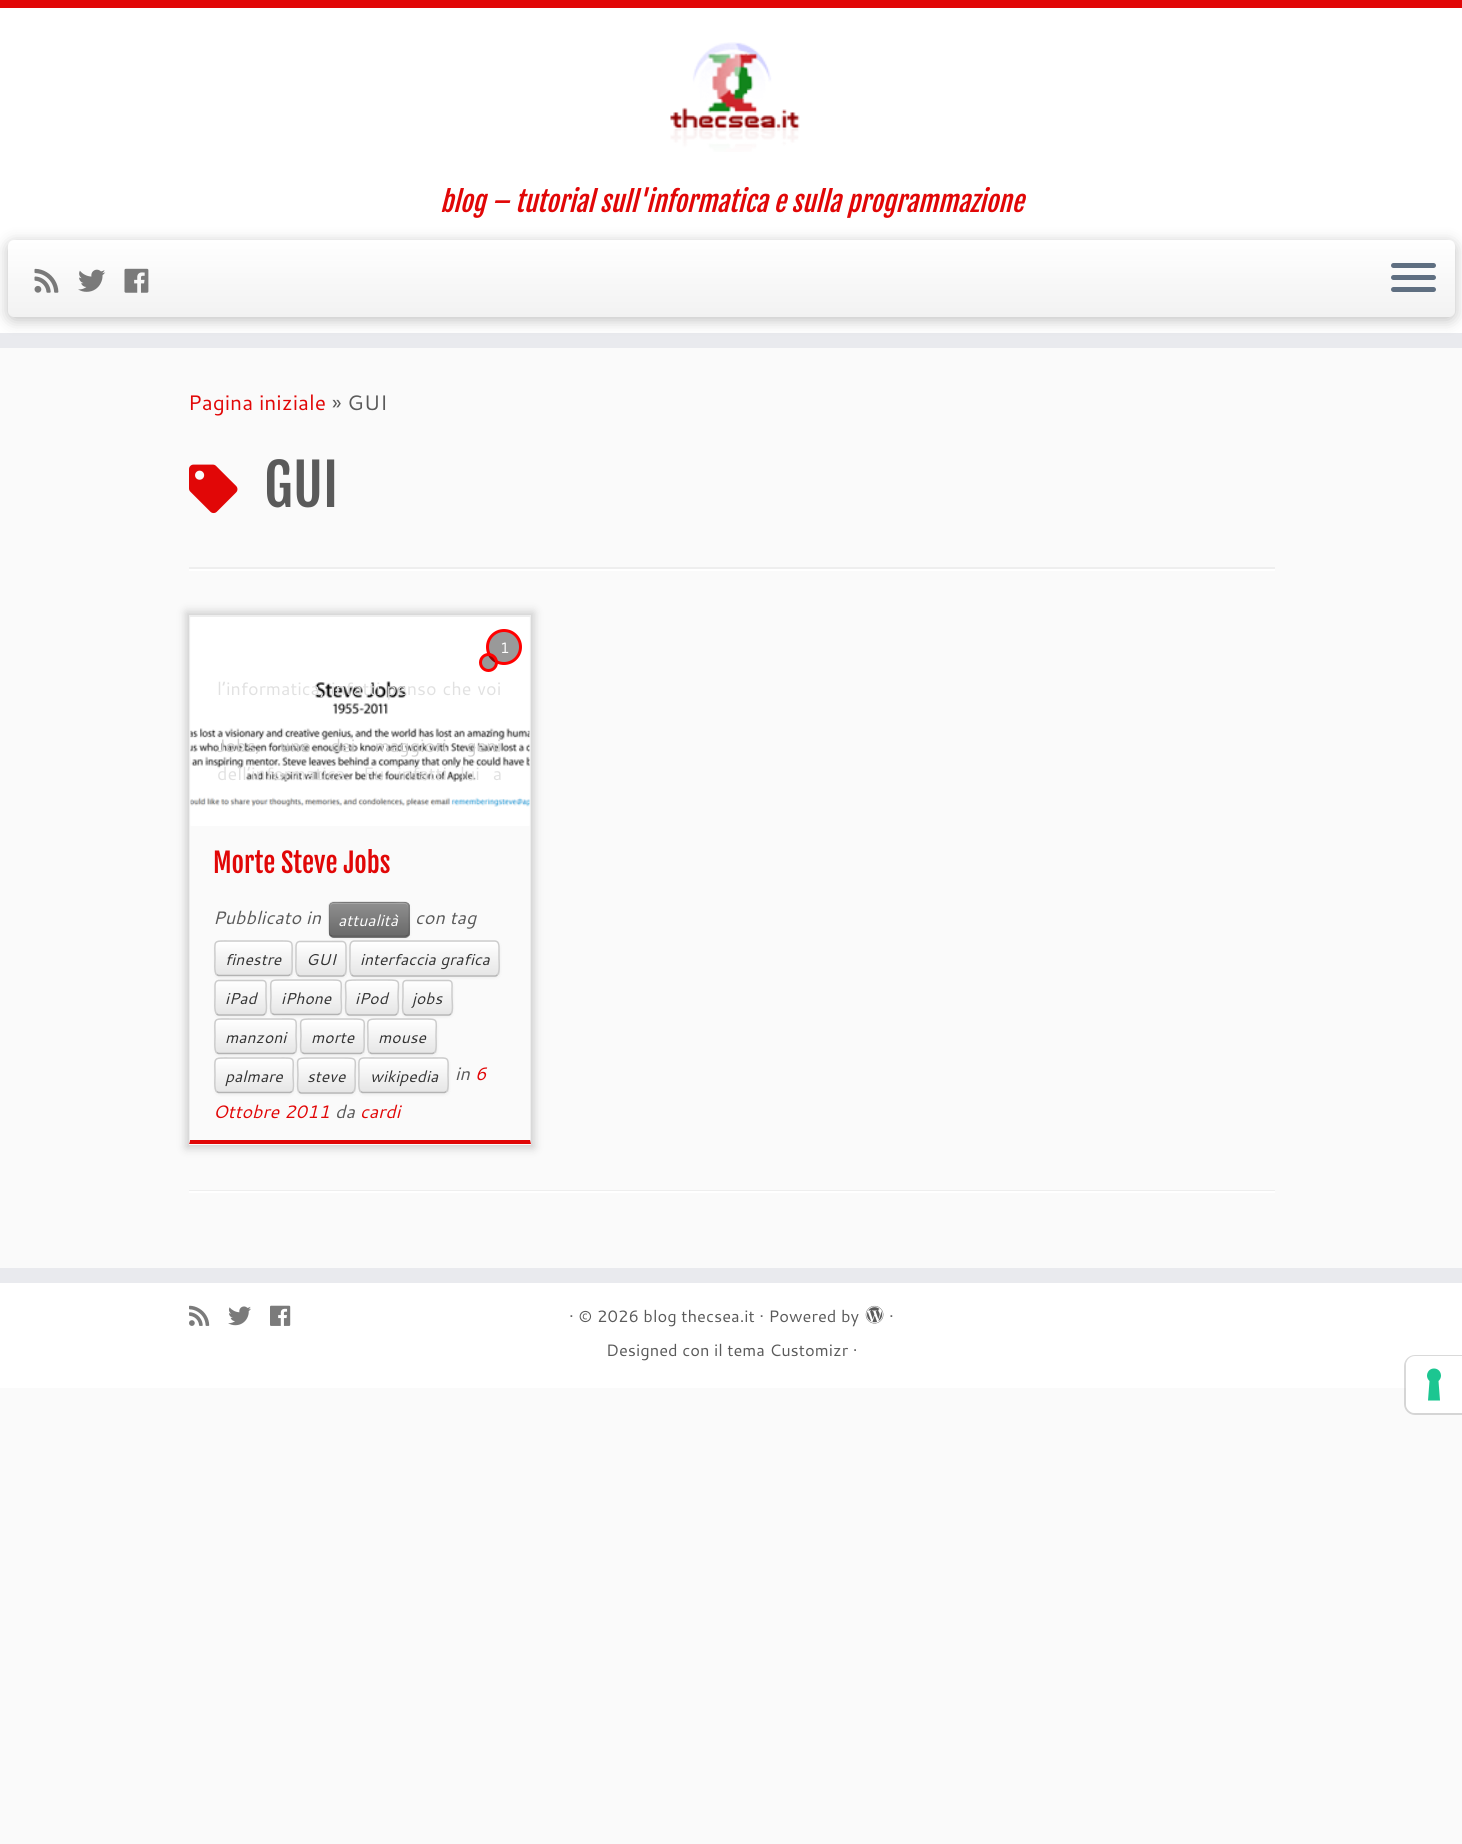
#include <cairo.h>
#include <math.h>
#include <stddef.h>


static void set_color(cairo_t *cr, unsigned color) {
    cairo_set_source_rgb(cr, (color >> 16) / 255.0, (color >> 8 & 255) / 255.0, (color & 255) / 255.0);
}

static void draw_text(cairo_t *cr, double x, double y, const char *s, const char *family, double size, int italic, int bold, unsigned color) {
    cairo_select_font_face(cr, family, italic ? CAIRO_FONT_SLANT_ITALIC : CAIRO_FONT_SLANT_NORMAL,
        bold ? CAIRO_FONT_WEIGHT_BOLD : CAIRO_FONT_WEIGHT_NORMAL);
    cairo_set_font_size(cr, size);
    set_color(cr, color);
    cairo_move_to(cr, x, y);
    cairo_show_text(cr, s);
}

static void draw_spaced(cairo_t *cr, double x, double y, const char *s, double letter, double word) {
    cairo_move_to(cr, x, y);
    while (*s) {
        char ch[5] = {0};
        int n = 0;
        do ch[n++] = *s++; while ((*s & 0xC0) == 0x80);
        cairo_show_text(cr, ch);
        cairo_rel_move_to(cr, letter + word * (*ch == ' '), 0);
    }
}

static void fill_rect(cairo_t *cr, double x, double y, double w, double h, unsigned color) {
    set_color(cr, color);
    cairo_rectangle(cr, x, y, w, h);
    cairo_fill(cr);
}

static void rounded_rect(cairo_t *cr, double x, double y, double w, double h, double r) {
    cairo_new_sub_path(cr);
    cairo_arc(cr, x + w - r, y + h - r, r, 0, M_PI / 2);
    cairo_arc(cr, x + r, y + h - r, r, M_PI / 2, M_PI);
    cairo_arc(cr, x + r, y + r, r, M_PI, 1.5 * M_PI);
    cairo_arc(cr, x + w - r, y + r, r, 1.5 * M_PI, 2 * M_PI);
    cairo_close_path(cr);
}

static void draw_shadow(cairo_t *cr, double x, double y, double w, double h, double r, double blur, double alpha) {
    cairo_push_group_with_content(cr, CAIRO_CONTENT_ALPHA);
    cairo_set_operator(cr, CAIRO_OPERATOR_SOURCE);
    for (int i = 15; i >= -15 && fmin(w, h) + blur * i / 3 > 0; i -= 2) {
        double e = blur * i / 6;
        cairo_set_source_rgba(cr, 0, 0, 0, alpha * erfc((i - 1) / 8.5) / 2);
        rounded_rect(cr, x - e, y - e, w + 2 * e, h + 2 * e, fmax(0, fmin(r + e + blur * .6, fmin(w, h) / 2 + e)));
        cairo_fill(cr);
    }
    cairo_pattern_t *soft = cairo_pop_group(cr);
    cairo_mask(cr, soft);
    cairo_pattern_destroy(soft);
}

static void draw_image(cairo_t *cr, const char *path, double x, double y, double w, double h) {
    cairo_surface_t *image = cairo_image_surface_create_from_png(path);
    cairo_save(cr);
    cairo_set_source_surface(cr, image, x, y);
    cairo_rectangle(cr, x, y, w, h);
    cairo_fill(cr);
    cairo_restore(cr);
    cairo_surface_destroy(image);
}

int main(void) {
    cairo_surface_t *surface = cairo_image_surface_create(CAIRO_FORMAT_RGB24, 1462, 1844);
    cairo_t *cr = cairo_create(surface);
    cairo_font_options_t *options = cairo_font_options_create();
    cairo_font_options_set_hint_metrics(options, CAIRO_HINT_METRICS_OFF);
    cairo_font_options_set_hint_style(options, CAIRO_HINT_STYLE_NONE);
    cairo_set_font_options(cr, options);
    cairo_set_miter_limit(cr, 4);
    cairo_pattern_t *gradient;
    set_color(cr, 0xFAFAFA);
    cairo_paint(cr);
    fill_rect(cr, 0, 8, 1462, 325, 0xFFFFFF);
    fill_rect(cr, 0, 0, 1462, 8, 0xE10707);
    fill_rect(cr, 0, 333, 1462, 15, 0xE9EAEE);
    draw_image(cr, "assets/img1.png", 670, 42, 130, 110);
    draw_text(cr, 440, 212, "blog – tutorial sull'informatica e sulla programmazione", "Fjalla One", 27, 1, 0, 0xE10707);
    set_color(cr, 0x000000);
    draw_shadow(cr, 8, 243, 1447, 77, 6, 7.5, 0.25);
    gradient = cairo_pattern_create_linear(731, 240, 731, 317);
    cairo_pattern_add_color_stop_rgba(gradient, 0, 1, 1, 1, 1);
    cairo_pattern_add_color_stop_rgba(gradient, 1, 0.949, 0.949, 0.949, 1);
    cairo_set_source(cr, gradient);
    cairo_pattern_destroy(gradient);
    rounded_rect(cr, 8, 240, 1447, 77, 6);
    cairo_fill(cr);
    draw_image(cr, "assets/img2.png", 34, 268, 25, 25);
    draw_image(cr, "assets/img3.png", 78, 269, 28, 23);
    draw_image(cr, "assets/img4.png", 124, 268, 25, 25);
    set_color(cr, 0x5F6F81);
    rounded_rect(cr, 1391, 263, 45, 5, 2.5);
    cairo_fill(cr);
    rounded_rect(cr, 1391, 275, 45, 5, 2.5);
    cairo_fill(cr);
    rounded_rect(cr, 1391, 287, 45, 5, 2.5);
    cairo_fill(cr);
    draw_text(cr, 188, 410, "Pagina iniziale", "Cantarell", 21, 0, 0, 0xE10707);
    draw_text(cr, 332, 410, "» GUI", "Cantarell", 21, 0, 0, 0x5A5A5A);
    draw_image(cr, "assets/img5.png", 189, 464, 49, 50);
    draw_text(cr, 264, 507, "GUI", "Fjalla One", 57, 0, 0, 0x5A5A5A);
    fill_rect(cr, 189, 567, 1086, 2, 0xEEEEEE);
    fill_rect(cr, 189, 569, 1086, 2, 0xFFFFFF);
    cairo_save(cr);
    cairo_set_fill_rule(cr, CAIRO_FILL_RULE_EVEN_ODD);
    cairo_new_path(cr);
    cairo_move_to(cr, 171, 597);
    cairo_line_to(cr, 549, 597);
    cairo_line_to(cr, 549, 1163);
    cairo_line_to(cr, 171, 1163);
    cairo_close_path(cr);
    cairo_move_to(cr, 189, 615);
    cairo_line_to(cr, 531, 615);
    cairo_line_to(cr, 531, 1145);
    cairo_line_to(cr, 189, 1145);
    cairo_close_path(cr);
    cairo_clip(cr);
    set_color(cr, 0xCCCCCC);
    draw_shadow(cr, 186, 612, 348, 536, 0, 4.5, 1);
    cairo_restore(cr);
    fill_rect(cr, 189, 615, 342, 2, 0xEEEEEE);
    cairo_new_path(cr);
    cairo_move_to(cr, 531, 615);
    cairo_line_to(cr, 531, 1144);
    cairo_line_to(cr, 530, 1140);
    cairo_line_to(cr, 530, 616);
    cairo_close_path(cr);
    cairo_fill(cr);
    set_color(cr, 0xE10707);
    cairo_new_path(cr);
    cairo_move_to(cr, 531, 1144);
    cairo_line_to(cr, 189, 1144);
    cairo_line_to(cr, 190, 1140);
    cairo_line_to(cr, 530, 1140);
    cairo_close_path(cr);
    cairo_fill(cr);
    set_color(cr, 0xEEEEEE);
    cairo_new_path(cr);
    cairo_move_to(cr, 189, 1144);
    cairo_line_to(cr, 189, 615);
    cairo_line_to(cr, 190, 616);
    cairo_line_to(cr, 190, 1140);
    cairo_close_path(cr);
    cairo_fill(cr);
    draw_image(cr, "assets/img6.png", 190, 617, 340, 209);
    set_color(cr, 0x999999);
    cairo_arc(cr, 504, 647, 16.5, 0, 2 * M_PI);
    cairo_fill_preserve(cr);
    set_color(cr, 0xFF0000);
    cairo_set_line_width(cr, 3);
    cairo_stroke(cr);
    draw_text(cr, 500, 653, "1", "Cantarell", 15, 0, 0, 0xFFFFFF);
    cairo_set_source_rgba(cr, 0, 0, 0, 0.4);
    cairo_new_path(cr);
    cairo_arc(cr, 488.5, 662.5, 8, 0, 2 * M_PI);
    cairo_fill_preserve(cr);
    set_color(cr, 0xFF0000);
    cairo_stroke(cr);
    cairo_set_font_size(cr, 18);
    set_color(cr, 0xE1E1E1);
    draw_spaced(cr, 217, 695, "l’informatica, infatti penso che voi", 0, 1);
    set_color(cr, 0xD1D1D1);
    draw_spaced(cr, 217, 752, "Jobs, uno dei maggiori geni", 0, 14.5);
    set_color(cr, 0xE1E1E1);
    draw_spaced(cr, 217, 780, "dell’informatica. Fu infatti lui a", 0, 8);
    draw_text(cr, 213, 873, "Morte Steve Jobs", "Fjalla One", 27, 0, 0, 0xE10707);
    draw_text(cr, 213, 924, "Pubblicato in", "Cantarell", 18, 1, 0, 0x5A5A5A);
    set_color(cr, 0x000000);
    draw_shadow(cr, 329, 903, 81, 36, 5, 1.5, 0.05);
    set_color(cr, 0x808080);
    rounded_rect(cr, 329, 902, 81, 36, 5);
    cairo_fill(cr);
    cairo_save(cr);
    rounded_rect(cr, 329, 902, 81, 36, 5);
    cairo_clip(cr);
    gradient = cairo_pattern_create_linear(369, 903, 369, 936);
    cairo_pattern_add_color_stop_rgba(gradient, 0, 0.561, 0.561, 0.561, 1);
    cairo_pattern_add_color_stop_rgba(gradient, 1, 0.412, 0.412, 0.412, 1);
    cairo_set_source(cr, gradient);
    cairo_pattern_destroy(gradient);
    cairo_rectangle(cr, 329, 903, 81, 33);
    cairo_fill(cr);
    cairo_restore(cr);
    cairo_set_source_rgba(cr, 1, 1, 1, 0.2);
    cairo_new_path(cr);
    cairo_move_to(cr, 333, 904);
    cairo_line_to(cr, 405, 904);
    cairo_curve_to(cr, 407, 904, 408, 906, 408, 908);
    cairo_curve_to(cr, 408, 900, 401, 903, 393, 903);
    cairo_line_to(cr, 345, 903);
    cairo_curve_to(cr, 337, 903, 330, 900, 330, 908);
    cairo_curve_to(cr, 330, 906, 331, 904, 333, 904);
    cairo_close_path(cr);
    cairo_fill(cr);
    cairo_new_path(cr);
    cairo_move_to(cr, 407.5, 935.5);
    cairo_line_to(cr, 405.5, 936.5);
    cairo_line_to(cr, 332.5, 936.5);
    cairo_line_to(cr, 330.5, 935.5);
    cairo_set_source_rgba(cr, 0, 0, 0, 0.25);
    cairo_set_line_width(cr, 1.5);
    cairo_stroke(cr);
    cairo_new_path(cr);
    cairo_move_to(cr, 330.5, 935.5);
    cairo_curve_to(cr, 328, 933.5, 329, 922.5, 329, 919.5);
    cairo_curve_to(cr, 329, 900.5, 326, 902, 345, 902);
    cairo_line_to(cr, 393, 902);
    cairo_curve_to(cr, 412, 902, 409, 900.5, 409, 919.5);
    cairo_curve_to(cr, 409, 922.5, 410, 933.5, 407.5, 935.5);
    cairo_set_source_rgba(cr, 0, 0, 0, 0.1);
    cairo_stroke(cr);
    draw_text(cr, 338, 926, "attualità", "Cantarell", 15.75, 1, 0, 0xFFFFFF);
    draw_text(cr, 415, 924, "con tag", "Cantarell", 18, 1, 0, 0x5A5A5A);
    set_color(cr, 0x000000);
    draw_shadow(cr, 215, 942, 78, 36, 5, 1.5, 0.05);
    set_color(cr, 0xF5F5F5);
    rounded_rect(cr, 215, 941, 78, 36, 5);
    cairo_fill(cr);
    cairo_save(cr);
    rounded_rect(cr, 215, 941, 78, 36, 5);
    cairo_clip(cr);
    gradient = cairo_pattern_create_linear(254, 942, 254, 975);
    cairo_pattern_add_color_stop_rgba(gradient, 0, 1, 1, 1, 1);
    cairo_pattern_add_color_stop_rgba(gradient, 1, 0.902, 0.902, 0.902, 1);
    cairo_set_source(cr, gradient);
    cairo_pattern_destroy(gradient);
    cairo_rectangle(cr, 215, 942, 78, 33);
    cairo_fill(cr);
    cairo_restore(cr);
    cairo_new_path(cr);
    cairo_move_to(cr, 290.5, 974.5);
    cairo_line_to(cr, 288.5, 975.5);
    cairo_line_to(cr, 218.5, 975.5);
    cairo_line_to(cr, 216.5, 974.5);
    set_color(cr, 0xB3B3B3);
    cairo_stroke(cr);
    cairo_new_path(cr);
    cairo_move_to(cr, 216.5, 974.5);
    cairo_curve_to(cr, 214, 972.5, 215, 961.5, 215, 958.5);
    cairo_curve_to(cr, 215, 939.5, 212, 941, 230.5, 941);
    cairo_line_to(cr, 276.5, 941);
    cairo_curve_to(cr, 295, 941, 292, 939.5, 292, 958.5);
    cairo_curve_to(cr, 292, 961.5, 293, 972.5, 290.5, 974.5);
    set_color(cr, 0xCCCCCC);
    cairo_stroke(cr);
    draw_text(cr, 225, 965, "finestre", "Cantarell", 15.75, 1, 0, 0x333333);
    set_color(cr, 0x000000);
    draw_shadow(cr, 296, 942, 51, 36, 5, 1.5, 0.05);
    set_color(cr, 0xF5F5F5);
    rounded_rect(cr, 296, 941, 51, 36, 5);
    cairo_fill(cr);
    cairo_save(cr);
    rounded_rect(cr, 296, 941, 51, 36, 5);
    cairo_clip(cr);
    gradient = cairo_pattern_create_linear(321, 942, 321, 975);
    cairo_pattern_add_color_stop_rgba(gradient, 0, 1, 1, 1, 1);
    cairo_pattern_add_color_stop_rgba(gradient, 1, 0.902, 0.902, 0.902, 1);
    cairo_set_source(cr, gradient);
    cairo_pattern_destroy(gradient);
    cairo_rectangle(cr, 296, 942, 51, 33);
    cairo_fill(cr);
    cairo_restore(cr);
    set_color(cr, 0xFFFFFF);
    cairo_new_path(cr);
    cairo_move_to(cr, 300, 944);
    cairo_line_to(cr, 342, 944);
    cairo_curve_to(cr, 344, 944, 345, 945, 345, 946);
    cairo_curve_to(cr, 345, 940, 339, 942, 335, 942);
    cairo_line_to(cr, 307, 942);
    cairo_curve_to(cr, 303, 942, 297, 940, 297, 946);
    cairo_curve_to(cr, 297, 945, 298, 944, 300, 944);
    cairo_close_path(cr);
    cairo_fill(cr);
    cairo_new_path(cr);
    cairo_move_to(cr, 344.5, 974.5);
    cairo_curve_to(cr, 344, 975.5, 343, 976, 342, 976);
    cairo_line_to(cr, 300, 976);
    cairo_curve_to(cr, 299, 976, 298, 975.5, 297.5, 974.5);
    set_color(cr, 0xB3B3B3);
    cairo_stroke(cr);
    cairo_new_path(cr);
    cairo_move_to(cr, 297.5, 974.5);
    cairo_curve_to(cr, 295, 972.5, 296, 961.5, 296, 958.5);
    cairo_line_to(cr, 296, 949.5);
    cairo_curve_to(cr, 296, 946.5, 295.5, 942, 299.5, 941.5);
    cairo_line_to(cr, 342.5, 941.5);
    cairo_curve_to(cr, 346.5, 942, 346, 946.5, 346, 949.5);
    cairo_line_to(cr, 346, 958.5);
    cairo_curve_to(cr, 346, 961.5, 347, 972.5, 344.5, 974.5);
    set_color(cr, 0xCCCCCC);
    cairo_stroke(cr);
    draw_text(cr, 306, 965, "GUI", "Cantarell", 15.75, 1, 0, 0x333333);
    set_color(cr, 0x000000);
    draw_shadow(cr, 350, 942, 150, 36, 5, 1.5, 0.05);
    set_color(cr, 0xF5F5F5);
    rounded_rect(cr, 350, 941, 150, 36, 5);
    cairo_fill(cr);
    cairo_save(cr);
    rounded_rect(cr, 350, 941, 150, 36, 5);
    cairo_clip(cr);
    gradient = cairo_pattern_create_linear(425, 942, 425, 975);
    cairo_pattern_add_color_stop_rgba(gradient, 0, 1, 1, 1, 1);
    cairo_pattern_add_color_stop_rgba(gradient, 1, 0.902, 0.902, 0.902, 1);
    cairo_set_source(cr, gradient);
    cairo_pattern_destroy(gradient);
    cairo_rectangle(cr, 350, 942, 150, 33);
    cairo_fill(cr);
    cairo_restore(cr);
    cairo_new_path(cr);
    cairo_move_to(cr, 497.5, 974.5);
    cairo_curve_to(cr, 497, 975.5, 496, 976, 495, 976);
    cairo_line_to(cr, 354, 976);
    cairo_curve_to(cr, 353, 976, 352, 975.5, 351.5, 974.5);
    set_color(cr, 0xB3B3B3);
    cairo_stroke(cr);
    cairo_new_path(cr);
    cairo_move_to(cr, 351.5, 974.5);
    cairo_curve_to(cr, 349, 972.5, 350, 961.5, 350, 958.5);
    cairo_line_to(cr, 350, 949.5);
    cairo_curve_to(cr, 350, 946.5, 349.5, 941.5, 354, 941);
    cairo_line_to(cr, 495, 941);
    cairo_curve_to(cr, 499.5, 941.5, 499, 946.5, 499, 949.5);
    cairo_line_to(cr, 499, 958.5);
    cairo_curve_to(cr, 499, 961.5, 500, 972.5, 497.5, 974.5);
    set_color(cr, 0xCCCCCC);
    cairo_stroke(cr);
    draw_text(cr, 360, 965, "interfaccia grafica", "Cantarell", 15.75, 1, 0, 0x333333);
    set_color(cr, 0x000000);
    draw_shadow(cr, 215, 981, 52, 36, 5, 1.5, 0.05);
    set_color(cr, 0xF5F5F5);
    rounded_rect(cr, 215, 980, 52, 36, 5);
    cairo_fill(cr);
    cairo_save(cr);
    rounded_rect(cr, 215, 980, 52, 36, 5);
    cairo_clip(cr);
    gradient = cairo_pattern_create_linear(241, 981, 241, 1014);
    cairo_pattern_add_color_stop_rgba(gradient, 0, 1, 1, 1, 1);
    cairo_pattern_add_color_stop_rgba(gradient, 1, 0.902, 0.902, 0.902, 1);
    cairo_set_source(cr, gradient);
    cairo_pattern_destroy(gradient);
    cairo_rectangle(cr, 215, 981, 52, 33);
    cairo_fill(cr);
    cairo_restore(cr);
    set_color(cr, 0xFFFFFF);
    cairo_new_path(cr);
    cairo_move_to(cr, 219, 982);
    cairo_line_to(cr, 262, 982);
    cairo_curve_to(cr, 264, 982, 266, 984, 266, 986);
    cairo_curve_to(cr, 266, 979, 262, 981, 256, 981);
    cairo_line_to(cr, 226, 981);
    cairo_curve_to(cr, 220, 981, 216, 979, 216, 986);
    cairo_curve_to(cr, 216, 984, 217, 982, 219, 982);
    cairo_close_path(cr);
    cairo_fill(cr);
    cairo_new_path(cr);
    cairo_move_to(cr, 265, 1013.5);
    cairo_curve_to(cr, 264.5, 1014.5, 263.5, 1015, 262.5, 1015);
    cairo_line_to(cr, 219, 1015);
    cairo_curve_to(cr, 218, 1015, 217, 1014.5, 216.5, 1013.5);
    set_color(cr, 0xB3B3B3);
    cairo_stroke(cr);
    cairo_new_path(cr);
    cairo_move_to(cr, 216.5, 1013.5);
    cairo_curve_to(cr, 214, 1011.5, 215, 1000.5, 215, 997.5);
    cairo_line_to(cr, 215, 988.5);
    cairo_curve_to(cr, 215, 985.5, 214.5, 981, 218.5, 980.5);
    cairo_line_to(cr, 263, 980.5);
    cairo_curve_to(cr, 267, 981, 266, 985.5, 266, 988.5);
    cairo_line_to(cr, 266, 997.5);
    cairo_curve_to(cr, 266, 1000.5, 267.5, 1011.5, 265, 1013.5);
    set_color(cr, 0xCCCCCC);
    cairo_stroke(cr);
    draw_text(cr, 225, 1004, "iPad", "Cantarell", 15.75, 1, 0, 0x333333);
    set_color(cr, 0x000000);
    draw_shadow(cr, 270, 981, 72, 36, 5, 1.5, 0.05);
    set_color(cr, 0xF5F5F5);
    rounded_rect(cr, 270, 980, 72, 36, 5);
    cairo_fill(cr);
    cairo_save(cr);
    rounded_rect(cr, 270, 980, 72, 36, 5);
    cairo_clip(cr);
    gradient = cairo_pattern_create_linear(306, 981, 306, 1014);
    cairo_pattern_add_color_stop_rgba(gradient, 0, 1, 1, 1, 1);
    cairo_pattern_add_color_stop_rgba(gradient, 1, 0.902, 0.902, 0.902, 1);
    cairo_set_source(cr, gradient);
    cairo_pattern_destroy(gradient);
    cairo_rectangle(cr, 270, 981, 72, 33);
    cairo_fill(cr);
    cairo_restore(cr);
    cairo_set_source_rgba(cr, 1, 1, 1, 0.2);
    cairo_new_path(cr);
    cairo_move_to(cr, 274, 982);
    cairo_line_to(cr, 327, 982);
    cairo_curve_to(cr, 342, 982, 340, 980, 340, 995);
    cairo_line_to(cr, 340, 1013);
    cairo_curve_to(cr, 341, 1013, 341, 1012, 341, 1011);
    cairo_line_to(cr, 341, 984);
    cairo_curve_to(cr, 341, 982, 340, 981, 338, 981);
    cairo_line_to(cr, 275, 981);
    cairo_curve_to(cr, 273, 981, 272, 982, 272, 984);
    cairo_line_to(cr, 272, 986);
    cairo_curve_to(cr, 272, 984, 273, 982, 274, 982);
    cairo_close_path(cr);
    cairo_fill(cr);
    cairo_new_path(cr);
    cairo_move_to(cr, 340, 1013.5);
    cairo_line_to(cr, 338, 1014.5);
    cairo_line_to(cr, 274, 1014.5);
    cairo_line_to(cr, 272, 1013.5);
    set_color(cr, 0xB3B3B3);
    cairo_stroke(cr);
    cairo_new_path(cr);
    cairo_move_to(cr, 272, 1013.5);
    cairo_curve_to(cr, 269.5, 1011.5, 271, 1000.5, 271, 997.5);
    cairo_curve_to(cr, 271, 979, 267.5, 980, 285, 980);
    cairo_line_to(cr, 327, 980);
    cairo_curve_to(cr, 344.5, 980, 341, 979, 341, 997.5);
    cairo_curve_to(cr, 341, 1000.5, 342.5, 1011.5, 340, 1013.5);
    set_color(cr, 0xCCCCCC);
    cairo_stroke(cr);
    draw_text(cr, 281, 1004, "iPhone", "Cantarell", 15.75, 1, 0, 0x333333);
    set_color(cr, 0x000000);
    draw_shadow(cr, 345, 981, 54, 36, 5, 1.5, 0.05);
    set_color(cr, 0xF5F5F5);
    rounded_rect(cr, 345, 980, 54, 36, 5);
    cairo_fill(cr);
    cairo_save(cr);
    rounded_rect(cr, 345, 980, 54, 36, 5);
    cairo_clip(cr);
    gradient = cairo_pattern_create_linear(372, 981, 372, 1014);
    cairo_pattern_add_color_stop_rgba(gradient, 0, 1, 1, 1, 1);
    cairo_pattern_add_color_stop_rgba(gradient, 1, 0.902, 0.902, 0.902, 1);
    cairo_set_source(cr, gradient);
    cairo_pattern_destroy(gradient);
    cairo_rectangle(cr, 345, 981, 54, 33);
    cairo_fill(cr);
    cairo_restore(cr);
    cairo_new_path(cr);
    cairo_move_to(cr, 397, 1013.5);
    cairo_curve_to(cr, 396.5, 1014.5, 395.5, 1015, 394.5, 1015);
    cairo_line_to(cr, 349.5, 1015);
    cairo_curve_to(cr, 348.5, 1015, 347.5, 1014.5, 347, 1013.5);
    set_color(cr, 0xB3B3B3);
    cairo_stroke(cr);
    cairo_new_path(cr);
    cairo_move_to(cr, 347, 1013.5);
    cairo_curve_to(cr, 344.5, 1011.5, 346, 1000.5, 346, 997.5);
    cairo_curve_to(cr, 346, 981, 342, 980, 357, 980);
    cairo_line_to(cr, 387, 980);
    cairo_curve_to(cr, 402, 980, 398, 981, 398, 997.5);
    cairo_curve_to(cr, 398, 1000.5, 399.5, 1011.5, 397, 1013.5);
    set_color(cr, 0xCCCCCC);
    cairo_stroke(cr);
    draw_text(cr, 355, 1004, "iPod", "Cantarell", 15.75, 1, 0, 0x333333);
    set_color(cr, 0x000000);
    draw_shadow(cr, 402, 981, 51, 36, 5, 1.5, 0.05);
    set_color(cr, 0xF5F5F5);
    rounded_rect(cr, 402, 980, 51, 36, 5);
    cairo_fill(cr);
    cairo_save(cr);
    rounded_rect(cr, 402, 980, 51, 36, 5);
    cairo_clip(cr);
    gradient = cairo_pattern_create_linear(428, 981, 428, 1014);
    cairo_pattern_add_color_stop_rgba(gradient, 0, 1, 1, 1, 1);
    cairo_pattern_add_color_stop_rgba(gradient, 1, 0.902, 0.902, 0.902, 1);
    cairo_set_source(cr, gradient);
    cairo_pattern_destroy(gradient);
    cairo_rectangle(cr, 402, 981, 51, 33);
    cairo_fill(cr);
    cairo_restore(cr);
    set_color(cr, 0xFFFFFF);
    cairo_new_path(cr);
    cairo_move_to(cr, 406, 982);
    cairo_line_to(cr, 448, 982);
    cairo_curve_to(cr, 450, 982, 452, 984, 452, 986);
    cairo_curve_to(cr, 452, 979, 448, 981, 442, 981);
    cairo_line_to(cr, 414, 981);
    cairo_curve_to(cr, 408, 981, 404, 979, 404, 986);
    cairo_curve_to(cr, 404, 984, 405, 982, 406, 982);
    cairo_close_path(cr);
    cairo_fill(cr);
    cairo_new_path(cr);
    cairo_move_to(cr, 451, 1013.5);
    cairo_curve_to(cr, 450.5, 1014.5, 449.5, 1015, 448.5, 1015);
    cairo_line_to(cr, 406.5, 1015);
    cairo_curve_to(cr, 405.5, 1015, 404.5, 1014.5, 404, 1013.5);
    set_color(cr, 0xB3B3B3);
    cairo_stroke(cr);
    cairo_new_path(cr);
    cairo_move_to(cr, 404, 1013.5);
    cairo_curve_to(cr, 401.5, 1011.5, 403, 1000.5, 403, 997.5);
    cairo_line_to(cr, 403, 988.5);
    cairo_curve_to(cr, 403, 985.5, 402, 981, 406, 980.5);
    cairo_line_to(cr, 449, 980.5);
    cairo_curve_to(cr, 453, 981, 452, 985.5, 452, 988.5);
    cairo_line_to(cr, 452, 997.5);
    cairo_curve_to(cr, 452, 1000.5, 453.5, 1011.5, 451, 1013.5);
    set_color(cr, 0xCCCCCC);
    cairo_stroke(cr);
    draw_text(cr, 412, 1004, "jobs", "Cantarell", 15.75, 1, 0, 0x333333);
    set_color(cr, 0x000000);
    draw_shadow(cr, 215, 1020, 82, 36, 5, 1.5, 0.05);
    set_color(cr, 0xF5F5F5);
    rounded_rect(cr, 215, 1019, 82, 36, 5);
    cairo_fill(cr);
    cairo_save(cr);
    rounded_rect(cr, 215, 1019, 82, 36, 5);
    cairo_clip(cr);
    gradient = cairo_pattern_create_linear(256, 1020, 256, 1053);
    cairo_pattern_add_color_stop_rgba(gradient, 0, 1, 1, 1, 1);
    cairo_pattern_add_color_stop_rgba(gradient, 1, 0.902, 0.902, 0.902, 1);
    cairo_set_source(cr, gradient);
    cairo_pattern_destroy(gradient);
    cairo_rectangle(cr, 215, 1020, 82, 33);
    cairo_fill(cr);
    cairo_restore(cr);
    cairo_new_path(cr);
    cairo_move_to(cr, 295, 1052.5);
    cairo_line_to(cr, 293, 1053.5);
    cairo_line_to(cr, 218.5, 1053.5);
    cairo_line_to(cr, 216.5, 1052.5);
    set_color(cr, 0xB3B3B3);
    cairo_stroke(cr);
    cairo_new_path(cr);
    cairo_move_to(cr, 216.5, 1052.5);
    cairo_curve_to(cr, 214, 1050.5, 215, 1039.5, 215, 1036.5);
    cairo_curve_to(cr, 215, 1017, 212, 1019, 231, 1019);
    cairo_line_to(cr, 280, 1019);
    cairo_curve_to(cr, 299.5, 1019, 296, 1017, 296, 1036.5);
    cairo_curve_to(cr, 296, 1039.5, 297.5, 1050.5, 295, 1052.5);
    set_color(cr, 0xCCCCCC);
    cairo_stroke(cr);
    draw_text(cr, 225, 1043, "manzoni", "Cantarell", 15.75, 1, 0, 0x333333);
    set_color(cr, 0x000000);
    draw_shadow(cr, 300, 1020, 65, 36, 5, 1.5, 0.05);
    set_color(cr, 0xF5F5F5);
    rounded_rect(cr, 300, 1019, 65, 36, 5);
    cairo_fill(cr);
    cairo_save(cr);
    rounded_rect(cr, 300, 1019, 65, 36, 5);
    cairo_clip(cr);
    gradient = cairo_pattern_create_linear(332, 1020, 332, 1053);
    cairo_pattern_add_color_stop_rgba(gradient, 0, 1, 1, 1, 1);
    cairo_pattern_add_color_stop_rgba(gradient, 1, 0.902, 0.902, 0.902, 1);
    cairo_set_source(cr, gradient);
    cairo_pattern_destroy(gradient);
    cairo_rectangle(cr, 300, 1020, 65, 33);
    cairo_fill(cr);
    cairo_restore(cr);
    set_color(cr, 0xFFFFFF);
    cairo_new_path(cr);
    cairo_move_to(cr, 304, 1022);
    cairo_line_to(cr, 360, 1022);
    cairo_curve_to(cr, 362, 1022, 363, 1023, 363, 1024);
    cairo_curve_to(cr, 363, 1018, 355, 1020, 351, 1020);
    cairo_line_to(cr, 314, 1020);
    cairo_curve_to(cr, 310, 1020, 302, 1018, 302, 1024);
    cairo_curve_to(cr, 302, 1023, 303, 1022, 304, 1022);
    cairo_close_path(cr);
    cairo_fill(cr);
    cairo_new_path(cr);
    cairo_move_to(cr, 362.5, 1052.5);
    cairo_line_to(cr, 360.5, 1053.5);
    cairo_line_to(cr, 304, 1053.5);
    cairo_line_to(cr, 302, 1052.5);
    set_color(cr, 0xB3B3B3);
    cairo_stroke(cr);
    cairo_new_path(cr);
    cairo_move_to(cr, 302, 1052.5);
    cairo_curve_to(cr, 299.5, 1050.5, 301, 1039.5, 301, 1036.5);
    cairo_curve_to(cr, 301, 1019, 297, 1019, 314, 1019);
    cairo_line_to(cr, 351, 1019);
    cairo_curve_to(cr, 367.5, 1019, 364, 1019, 364, 1036.5);
    cairo_curve_to(cr, 364, 1039.5, 365, 1050.5, 362.5, 1052.5);
    set_color(cr, 0xCCCCCC);
    cairo_stroke(cr);
    draw_text(cr, 311, 1043, "morte", "Cantarell", 15.75, 1, 0, 0x333333);
    set_color(cr, 0x000000);
    draw_shadow(cr, 368, 1020, 69, 36, 5, 1.5, 0.05);
    set_color(cr, 0xF5F5F5);
    rounded_rect(cr, 368, 1019, 69, 36, 5);
    cairo_fill(cr);
    cairo_save(cr);
    rounded_rect(cr, 368, 1019, 69, 36, 5);
    cairo_clip(cr);
    gradient = cairo_pattern_create_linear(402, 1020, 402, 1053);
    cairo_pattern_add_color_stop_rgba(gradient, 0, 1, 1, 1, 1);
    cairo_pattern_add_color_stop_rgba(gradient, 1, 0.902, 0.902, 0.902, 1);
    cairo_set_source(cr, gradient);
    cairo_pattern_destroy(gradient);
    cairo_rectangle(cr, 368, 1020, 69, 33);
    cairo_fill(cr);
    cairo_restore(cr);
    cairo_new_path(cr);
    cairo_move_to(cr, 434.5, 1052.5);
    cairo_line_to(cr, 432.5, 1053.5);
    cairo_line_to(cr, 371.5, 1053.5);
    cairo_line_to(cr, 369.5, 1052.5);
    set_color(cr, 0xB3B3B3);
    cairo_stroke(cr);
    cairo_new_path(cr);
    cairo_move_to(cr, 369.5, 1052.5);
    cairo_curve_to(cr, 367, 1050.5, 368, 1039.5, 368, 1036.5);
    cairo_curve_to(cr, 368, 1018.5, 364.5, 1019, 382, 1019);
    cairo_line_to(cr, 422, 1019);
    cairo_curve_to(cr, 439.5, 1019, 436, 1018.5, 436, 1036.5);
    cairo_curve_to(cr, 436, 1039.5, 437, 1050.5, 434.5, 1052.5);
    set_color(cr, 0xCCCCCC);
    cairo_stroke(cr);
    draw_text(cr, 378, 1043, "mouse", "Cantarell", 15.75, 1, 0, 0x333333);
    set_color(cr, 0x000000);
    draw_shadow(cr, 215, 1059, 79, 36, 5, 1.5, 0.05);
    set_color(cr, 0xF5F5F5);
    rounded_rect(cr, 215, 1058, 79, 36, 5);
    cairo_fill(cr);
    cairo_save(cr);
    rounded_rect(cr, 215, 1058, 79, 36, 5);
    cairo_clip(cr);
    gradient = cairo_pattern_create_linear(254, 1059, 254, 1092);
    cairo_pattern_add_color_stop_rgba(gradient, 0, 1, 1, 1, 1);
    cairo_pattern_add_color_stop_rgba(gradient, 1, 0.902, 0.902, 0.902, 1);
    cairo_set_source(cr, gradient);
    cairo_pattern_destroy(gradient);
    cairo_rectangle(cr, 215, 1059, 79, 33);
    cairo_fill(cr);
    cairo_restore(cr);
    cairo_set_source_rgba(cr, 1, 1, 1, 0.2);
    cairo_new_path(cr);
    cairo_move_to(cr, 219, 1060);
    cairo_line_to(cr, 278, 1060);
    cairo_curve_to(cr, 294, 1060, 292, 1058, 292, 1073);
    cairo_line_to(cr, 292, 1091);
    cairo_curve_to(cr, 293, 1091, 293, 1090, 293, 1089);
    cairo_line_to(cr, 293, 1062);
    cairo_curve_to(cr, 293, 1060, 292, 1059, 290, 1059);
    cairo_line_to(cr, 219, 1059);
    cairo_curve_to(cr, 217, 1059, 216, 1060, 216, 1062);
    cairo_line_to(cr, 216, 1064);
    cairo_curve_to(cr, 216, 1062, 217, 1060, 219, 1060);
    cairo_close_path(cr);
    cairo_fill(cr);
    cairo_new_path(cr);
    cairo_move_to(cr, 292, 1091.5);
    cairo_line_to(cr, 290, 1092.5);
    cairo_line_to(cr, 218.5, 1092.5);
    cairo_line_to(cr, 216.5, 1091.5);
    set_color(cr, 0xB3B3B3);
    cairo_stroke(cr);
    cairo_new_path(cr);
    cairo_move_to(cr, 216.5, 1091.5);
    cairo_curve_to(cr, 214, 1089.5, 215, 1078.5, 215, 1075.5);
    cairo_curve_to(cr, 215, 1056.5, 212, 1058, 231, 1058);
    cairo_line_to(cr, 278, 1058);
    cairo_curve_to(cr, 296.5, 1058, 293, 1056.5, 293, 1075.5);
    cairo_curve_to(cr, 293, 1078.5, 294.5, 1089.5, 292, 1091.5);
    set_color(cr, 0xCCCCCC);
    cairo_stroke(cr);
    draw_text(cr, 225, 1082, "palmare", "Cantarell", 15.75, 1, 0, 0x333333);
    set_color(cr, 0x000000);
    draw_shadow(cr, 297, 1059, 59, 36, 5, 1.5, 0.05);
    set_color(cr, 0xF5F5F5);
    rounded_rect(cr, 297, 1058, 59, 36, 5);
    cairo_fill(cr);
    cairo_save(cr);
    rounded_rect(cr, 297, 1058, 59, 36, 5);
    cairo_clip(cr);
    gradient = cairo_pattern_create_linear(326, 1059, 326, 1092);
    cairo_pattern_add_color_stop_rgba(gradient, 0, 1, 1, 1, 1);
    cairo_pattern_add_color_stop_rgba(gradient, 1, 0.902, 0.902, 0.902, 1);
    cairo_set_source(cr, gradient);
    cairo_pattern_destroy(gradient);
    cairo_rectangle(cr, 297, 1059, 59, 33);
    cairo_fill(cr);
    cairo_restore(cr);
    cairo_new_path(cr);
    cairo_move_to(cr, 353.5, 1091.5);
    cairo_curve_to(cr, 353, 1092.5, 352, 1093, 351, 1093);
    cairo_line_to(cr, 301.5, 1093);
    cairo_curve_to(cr, 300.5, 1093, 299.5, 1092.5, 299, 1091.5);
    set_color(cr, 0xB3B3B3);
    cairo_stroke(cr);
    cairo_new_path(cr);
    cairo_move_to(cr, 299, 1091.5);
    cairo_curve_to(cr, 296.5, 1089.5, 298, 1078.5, 298, 1075.5);
    cairo_curve_to(cr, 298, 1058.5, 294, 1058, 310, 1058);
    cairo_line_to(cr, 343, 1058);
    cairo_curve_to(cr, 358.5, 1058, 355, 1058.5, 355, 1075.5);
    cairo_curve_to(cr, 355, 1078.5, 356, 1089.5, 353.5, 1091.5);
    set_color(cr, 0xCCCCCC);
    cairo_stroke(cr);
    draw_text(cr, 307, 1082, "steve", "Cantarell", 15.75, 1, 0, 0x333333);
    set_color(cr, 0x000000);
    draw_shadow(cr, 359, 1059, 90, 36, 5, 1.5, 0.05);
    set_color(cr, 0xF5F5F5);
    rounded_rect(cr, 359, 1058, 90, 36, 5);
    cairo_fill(cr);
    cairo_save(cr);
    rounded_rect(cr, 359, 1058, 90, 36, 5);
    cairo_clip(cr);
    gradient = cairo_pattern_create_linear(404, 1059, 404, 1092);
    cairo_pattern_add_color_stop_rgba(gradient, 0, 1, 1, 1, 1);
    cairo_pattern_add_color_stop_rgba(gradient, 1, 0.902, 0.902, 0.902, 1);
    cairo_set_source(cr, gradient);
    cairo_pattern_destroy(gradient);
    cairo_rectangle(cr, 359, 1059, 90, 33);
    cairo_fill(cr);
    cairo_restore(cr);
    cairo_new_path(cr);
    cairo_move_to(cr, 446.5, 1091.5);
    cairo_line_to(cr, 444.5, 1092.5);
    cairo_line_to(cr, 362.5, 1092.5);
    cairo_line_to(cr, 360.5, 1091.5);
    set_color(cr, 0xB3B3B3);
    cairo_stroke(cr);
    cairo_new_path(cr);
    cairo_move_to(cr, 360.5, 1091.5);
    cairo_curve_to(cr, 358, 1089.5, 359, 1078.5, 359, 1075.5);
    cairo_curve_to(cr, 359, 1055.5, 356, 1058, 376.5, 1058);
    cairo_line_to(cr, 430.5, 1058);
    cairo_curve_to(cr, 451, 1058, 448, 1055.5, 448, 1075.5);
    cairo_curve_to(cr, 448, 1078.5, 449, 1089.5, 446.5, 1091.5);
    set_color(cr, 0xCCCCCC);
    cairo_stroke(cr);
    draw_text(cr, 370, 1082, "wikipedia", "Cantarell", 15.75, 1, 0, 0x333333);
    draw_text(cr, 455, 1080, "in", "Cantarell", 18, 1, 0, 0x5A5A5A);
    draw_text(cr, 475, 1080, "6", "Cantarell", 18, 1, 0, 0xE10707);
    draw_text(cr, 213, 1118, "Ottobre 2011", "Cantarell", 18, 1, 0, 0xE10707);
    draw_text(cr, 335, 1118, "da", "Cantarell", 18, 1, 0, 0x5A5A5A);
    draw_text(cr, 360, 1118, "cardi", "Cantarell", 18, 1, 0, 0xE10707);
    fill_rect(cr, 189, 1190, 1086, 1, 0xEEEEEE);
    fill_rect(cr, 189, 1191, 1086, 2, 0xFFFFFF);
    fill_rect(cr, 0, 1268, 1462, 15, 0xE9EAEE);
    fill_rect(cr, 0, 1283, 1462, 105, 0xFFFFFF);
    draw_image(cr, "assets/img7.png", 189, 1305, 21, 21);
    draw_image(cr, "assets/img8.png", 228, 1306, 23, 20);
    draw_image(cr, "assets/img9.png", 270, 1305, 21, 21);
    draw_text(cr, 569, 1322, "· © 2026 blog thecsea.it · Powered by", "Cantarell", 16.5, 0, 0, 0x5A5A5A);
    draw_image(cr, "assets/img10.png", 865, 1305, 19, 19);
    draw_text(cr, 889, 1322, "·", "Cantarell", 16.5, 0, 0, 0x5A5A5A);
    draw_text(cr, 606, 1356, "Designed con il tema Customizr ·", "Cantarell", 16.5, 0, 0, 0x5A5A5A);
    cairo_new_path(cr);
    cairo_move_to(cr, 1415, 1356);
    cairo_line_to(cr, 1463, 1356);
    cairo_line_to(cr, 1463, 1414);
    cairo_line_to(cr, 1415, 1414);
    cairo_curve_to(cr, 1409.5, 1414, 1405, 1409.5, 1405, 1404);
    cairo_line_to(cr, 1405, 1366);
    cairo_curve_to(cr, 1405, 1360.5, 1409.5, 1356, 1415, 1356);
    cairo_close_path(cr);
    cairo_set_source_rgba(cr, 0, 0, 0, 0.15);
    cairo_set_line_width(cr, 2);
    cairo_stroke(cr);
    set_color(cr, 0xFFFFFF);
    cairo_new_path(cr);
    cairo_move_to(cr, 1415, 1356);
    cairo_line_to(cr, 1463, 1356);
    cairo_line_to(cr, 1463, 1413);
    cairo_line_to(cr, 1415, 1413);
    cairo_curve_to(cr, 1410, 1413, 1406, 1409, 1406, 1404);
    cairo_line_to(cr, 1406, 1365);
    cairo_curve_to(cr, 1406, 1360, 1410, 1356, 1415, 1356);
    cairo_close_path(cr);
    cairo_fill(cr);
    set_color(cr, 0x1CC691);
    cairo_set_fill_rule(cr, CAIRO_FILL_RULE_EVEN_ODD);
    cairo_new_path(cr);
    cairo_move_to(cr, 1434, 1368.5);
    cairo_curve_to(cr, 1440.5, 1368.5, 1443.5, 1376.5, 1438.5, 1381);
    cairo_line_to(cr, 1440, 1400.5);
    cairo_line_to(cr, 1428, 1400.5);
    cairo_line_to(cr, 1429.5, 1381);
    cairo_curve_to(cr, 1424.5, 1376.5, 1427.5, 1368.5, 1434, 1368.5);
    cairo_close_path(cr);
    cairo_fill(cr);
    cairo_surface_write_to_png(surface, "output.png");
    cairo_font_options_destroy(options);
    cairo_destroy(cr);
    cairo_surface_destroy(surface);
    return 0;
}
